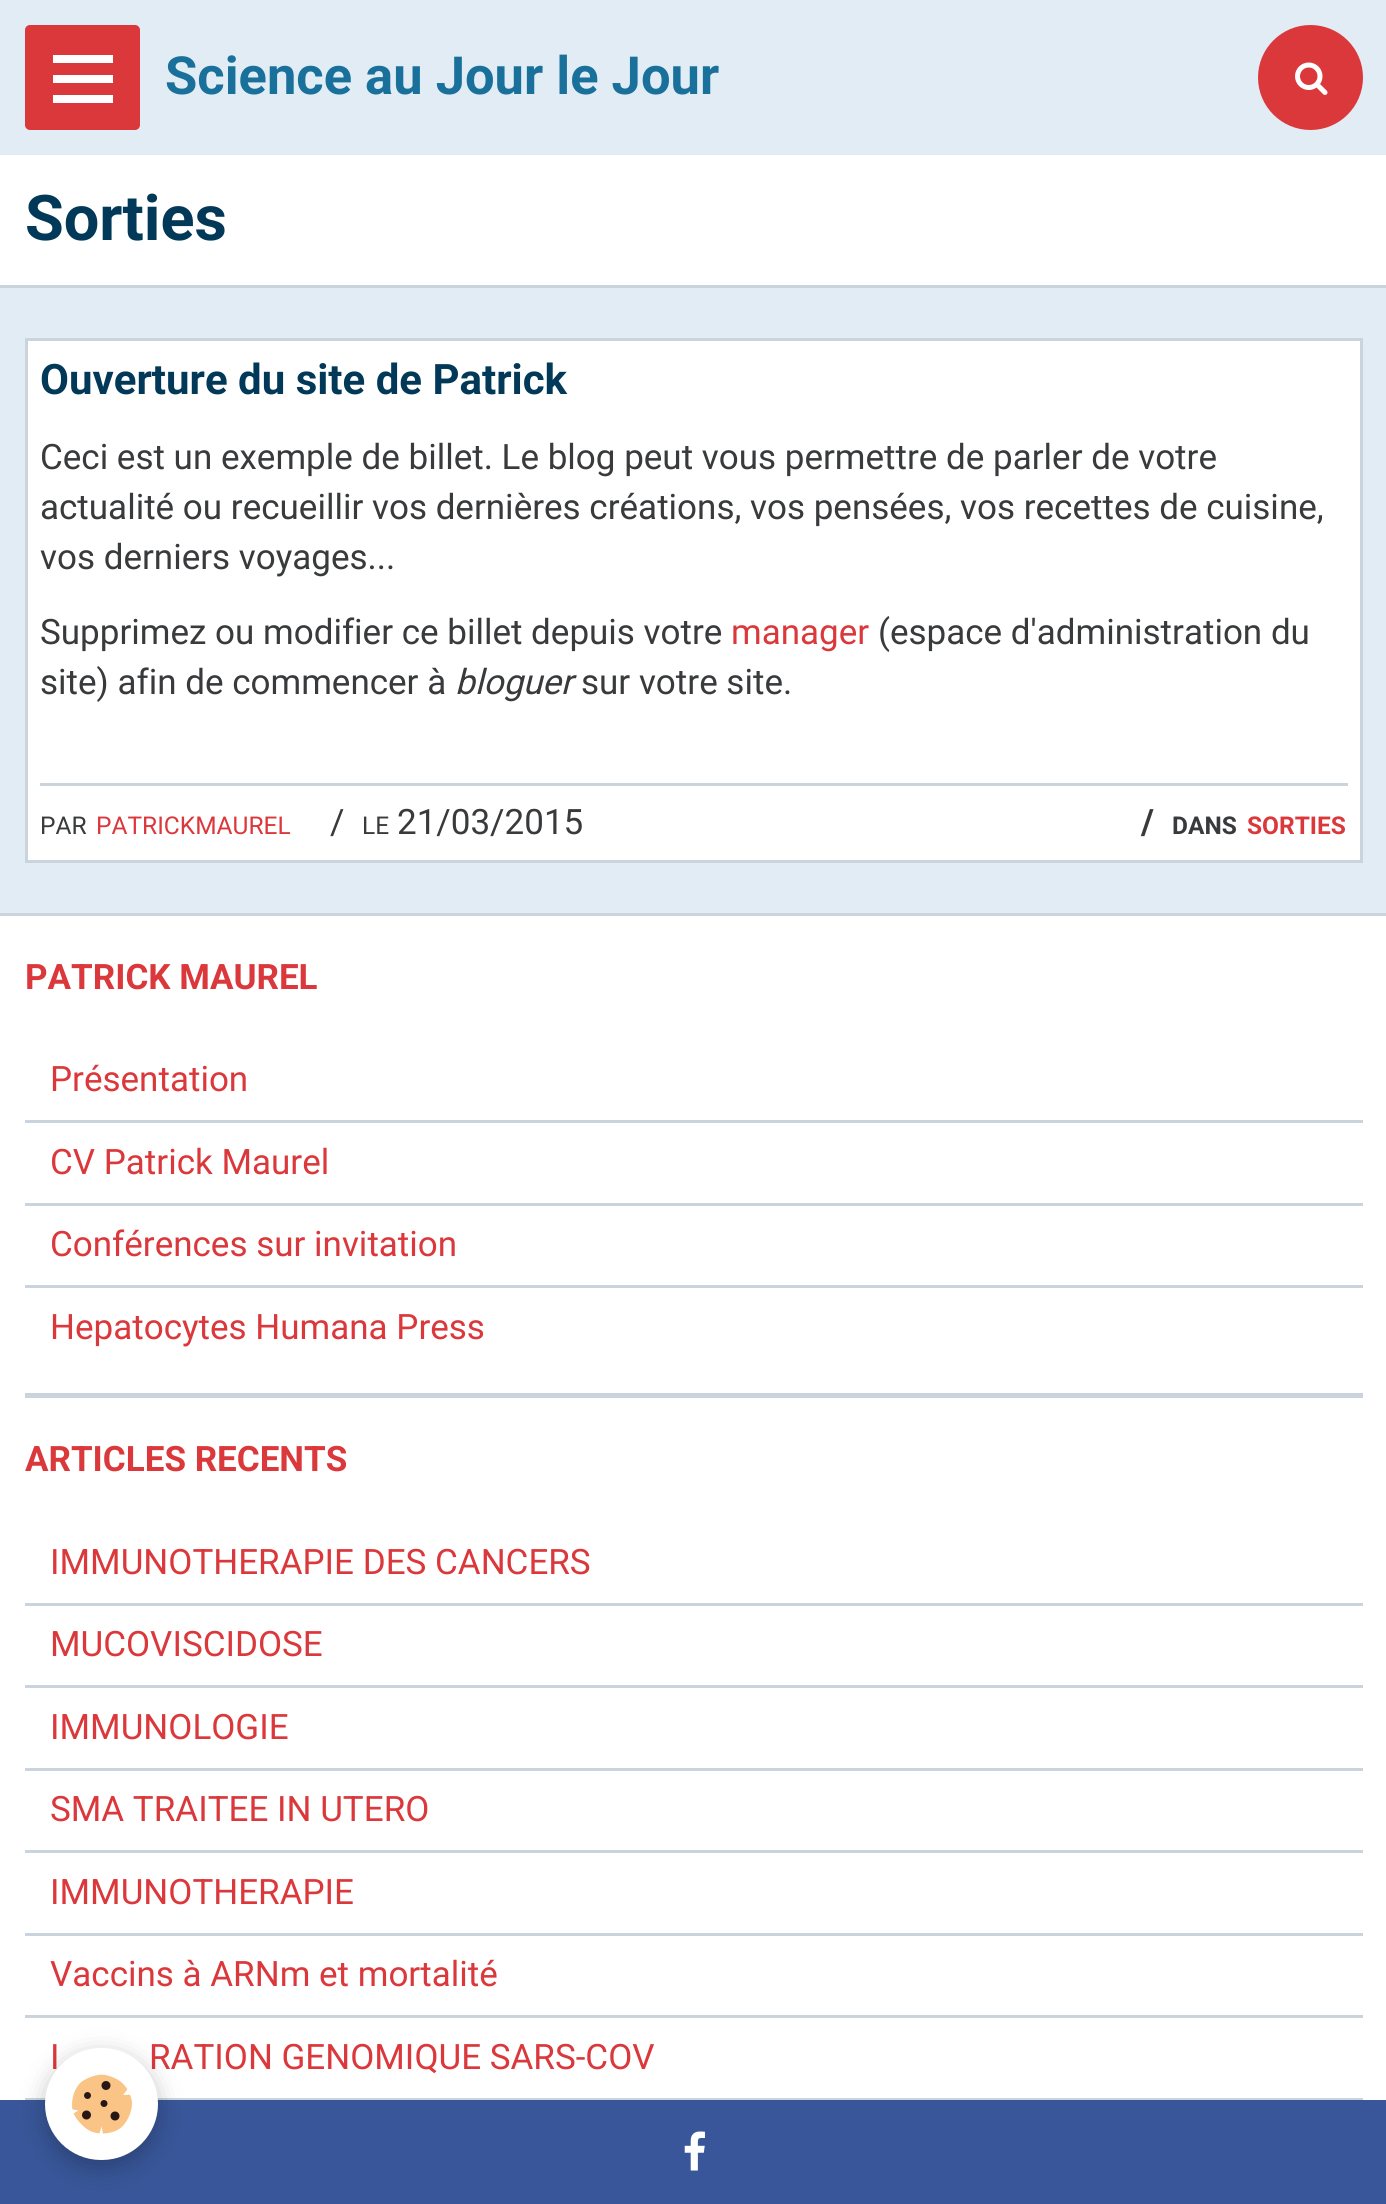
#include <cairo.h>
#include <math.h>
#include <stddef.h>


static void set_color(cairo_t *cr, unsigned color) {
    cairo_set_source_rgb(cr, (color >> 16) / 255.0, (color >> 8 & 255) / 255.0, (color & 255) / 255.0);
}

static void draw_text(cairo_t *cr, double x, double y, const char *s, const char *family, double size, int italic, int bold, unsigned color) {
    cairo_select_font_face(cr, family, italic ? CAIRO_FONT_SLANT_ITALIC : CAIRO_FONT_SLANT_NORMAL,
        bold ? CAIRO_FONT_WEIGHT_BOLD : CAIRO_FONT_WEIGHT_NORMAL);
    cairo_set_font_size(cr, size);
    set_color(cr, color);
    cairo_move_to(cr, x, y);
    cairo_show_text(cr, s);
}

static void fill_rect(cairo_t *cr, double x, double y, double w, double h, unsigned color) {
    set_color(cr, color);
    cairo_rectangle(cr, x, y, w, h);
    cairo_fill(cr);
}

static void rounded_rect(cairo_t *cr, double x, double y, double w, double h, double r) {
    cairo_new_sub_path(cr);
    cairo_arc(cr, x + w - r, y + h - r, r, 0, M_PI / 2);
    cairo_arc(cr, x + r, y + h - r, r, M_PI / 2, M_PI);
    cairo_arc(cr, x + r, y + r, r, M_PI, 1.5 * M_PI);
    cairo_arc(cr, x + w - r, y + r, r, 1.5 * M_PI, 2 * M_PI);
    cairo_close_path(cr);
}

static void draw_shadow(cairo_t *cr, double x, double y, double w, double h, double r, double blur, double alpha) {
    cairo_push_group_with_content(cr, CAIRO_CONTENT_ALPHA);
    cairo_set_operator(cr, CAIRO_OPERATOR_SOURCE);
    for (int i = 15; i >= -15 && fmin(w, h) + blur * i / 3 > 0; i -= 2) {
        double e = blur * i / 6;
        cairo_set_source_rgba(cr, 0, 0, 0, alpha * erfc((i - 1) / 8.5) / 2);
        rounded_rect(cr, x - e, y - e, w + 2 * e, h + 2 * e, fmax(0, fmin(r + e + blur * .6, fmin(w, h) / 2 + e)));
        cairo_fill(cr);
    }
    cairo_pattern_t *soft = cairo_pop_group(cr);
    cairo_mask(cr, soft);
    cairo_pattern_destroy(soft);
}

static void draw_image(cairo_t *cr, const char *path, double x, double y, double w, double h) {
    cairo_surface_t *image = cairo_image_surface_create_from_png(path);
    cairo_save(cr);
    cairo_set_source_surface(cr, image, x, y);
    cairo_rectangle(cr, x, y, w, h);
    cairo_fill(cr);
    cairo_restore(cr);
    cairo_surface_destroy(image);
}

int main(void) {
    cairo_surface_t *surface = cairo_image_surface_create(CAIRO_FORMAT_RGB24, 1386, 2204);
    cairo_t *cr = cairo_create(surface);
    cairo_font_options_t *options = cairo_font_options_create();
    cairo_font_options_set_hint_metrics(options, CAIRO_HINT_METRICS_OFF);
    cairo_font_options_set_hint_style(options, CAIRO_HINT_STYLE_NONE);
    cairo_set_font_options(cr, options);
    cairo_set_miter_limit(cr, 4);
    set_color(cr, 0xE2ECF5);
    cairo_paint(cr);
    set_color(cr, 0xDB383C);
    rounded_rect(cr, 25, 25, 115, 105, 5);
    cairo_fill(cr);
    fill_rect(cr, 53, 75, 60, 8, 0xFFFFFF);
    fill_rect(cr, 53, 55, 60, 8, 0xFFFFFF);
    fill_rect(cr, 53, 95, 60, 8, 0xFFFFFF);
    draw_text(cr, 165, 94, "Science au Jour le Jour", "Roboto", 52.5, 0, 1, 0x19709B);
    set_color(cr, 0xDB383C);
    cairo_new_path(cr);
    cairo_arc(cr, 1310.5, 77.5, 52.5, 0, 2 * M_PI);
    cairo_fill(cr);
    draw_image(cr, "assets/img1.png", 1295, 62, 33, 33);
    fill_rect(cr, 0, 155, 1386, 130, 0xFFFFFF);
    fill_rect(cr, 0, 285, 1386, 3, 0xCBD4DC);
    draw_text(cr, 25, 240, "Sorties", "Roboto", 63, 0, 1, 0x033958);
    set_color(cr, 0xFFFFFF);
    cairo_rectangle(cr, 26.5, 339.5, 1335, 522);
    cairo_fill_preserve(cr);
    set_color(cr, 0xCBD4DC);
    cairo_set_line_width(cr, 3);
    cairo_stroke(cr);
    draw_text(cr, 40, 394, "Ouverture du site de Patrick", "Roboto", 42, 0, 1, 0x033958);
    draw_text(cr, 40, 469, "Ceci est un exemple de billet. Le blog peut vous permettre de parler de votre", "Roboto", 35, 0, 0, 0x393A3C);
    draw_text(cr, 40, 519, "actualité ou recueillir vos dernières créations, vos pensées, vos recettes de cuisine,", "Roboto", 35, 0, 0, 0x393A3C);
    draw_text(cr, 40, 569, "vos derniers voyages...", "Roboto", 35, 0, 0, 0x393A3C);
    draw_text(cr, 40, 644, "Supprimez ou modifier ce billet depuis votre", "Roboto", 35, 0, 0, 0x393A3C);
    draw_text(cr, 731, 644, "manager", "Roboto", 35, 0, 0, 0xDB383C);
    draw_text(cr, 878, 644, "(espace d'administration du", "Roboto", 35, 0, 0, 0x393A3C);
    draw_text(cr, 40, 694, "site) afin de commencer à", "Roboto", 35, 0, 0, 0x393A3C);
    draw_text(cr, 455, 694, "bloguer", "Roboto", 35, 1, 0, 0x393A3C);
    draw_text(cr, 581, 694, "sur votre site.", "Roboto", 35, 0, 0, 0x393A3C);
    fill_rect(cr, 40, 783, 1308, 3, 0xCBD4DC);
    draw_text(cr, 40, 834, "PAR", "Roboto", 24.5, 0, 0, 0x393A3C);
    draw_text(cr, 96, 834, "PATRICKMAUREL", "Roboto", 24.5, 0, 0, 0xDB383C);
    draw_text(cr, 330, 834, "/", "Roboto", 35, 0, 0, 0x393A3C);
    draw_text(cr, 362, 834, "LE", "Roboto", 24.5, 0, 0, 0x393A3C);
    draw_text(cr, 397, 834, "21/03/2015", "Roboto", 35, 0, 0, 0x393A3C);
    draw_text(cr, 1141, 834, "/", "Roboto", 35, 0, 1, 0x393A3C);
    draw_text(cr, 1172, 834, "DANS", "Roboto", 24.5, 0, 1, 0x393A3C);
    draw_text(cr, 1247, 834, "SORTIES", "Roboto", 24.5, 0, 1, 0xDB383C);
    fill_rect(cr, 0, 916, 1386, 1184, 0xFFFFFF);
    fill_rect(cr, 0, 913, 1386, 3, 0xCBD4DC);
    draw_text(cr, 25, 989, "PATRICK MAUREL", "Roboto", 35, 0, 1, 0xDB383C);
    fill_rect(cr, 25, 1120, 1338, 3, 0xCBD4DC);
    draw_text(cr, 50, 1091, "Présentation", "Roboto", 35, 0, 0, 0xDB383C);
    fill_rect(cr, 25, 1203, 1338, 3, 0xCBD4DC);
    draw_text(cr, 50, 1174, "CV Patrick Maurel", "Roboto", 35, 0, 0, 0xDB383C);
    fill_rect(cr, 25, 1285, 1338, 3, 0xCBD4DC);
    draw_text(cr, 50, 1256, "Conférences sur invitation", "Roboto", 35, 0, 0, 0xDB383C);
    draw_text(cr, 50, 1339, "Hepatocytes Humana Press", "Roboto", 35, 0, 0, 0xDB383C);
    fill_rect(cr, 25, 1393, 1338, 5, 0xCBD4DC);
    draw_text(cr, 25, 1471, "ARTICLES RECENTS", "Roboto", 35, 0, 1, 0xDB383C);
    fill_rect(cr, 25, 1603, 1338, 3, 0xCBD4DC);
    draw_text(cr, 50, 1574, "IMMUNOTHERAPIE DES CANCERS", "Roboto", 35, 0, 0, 0xDB383C);
    fill_rect(cr, 25, 1685, 1338, 3, 0xCBD4DC);
    draw_text(cr, 50, 1656, "MUCOVISCIDOSE", "Roboto", 35, 0, 0, 0xDB383C);
    fill_rect(cr, 25, 1768, 1338, 3, 0xCBD4DC);
    draw_text(cr, 50, 1739, "IMMUNOLOGIE", "Roboto", 35, 0, 0, 0xDB383C);
    fill_rect(cr, 25, 1850, 1338, 3, 0xCBD4DC);
    draw_text(cr, 50, 1821, "SMA TRAITEE IN UTERO", "Roboto", 35, 0, 0, 0xDB383C);
    fill_rect(cr, 25, 1933, 1338, 3, 0xCBD4DC);
    draw_text(cr, 50, 1904, "IMMUNOTHERAPIE", "Roboto", 35, 0, 0, 0xDB383C);
    fill_rect(cr, 25, 2015, 1338, 3, 0xCBD4DC);
    draw_text(cr, 50, 1986, "Vaccins à ARNm et mortalité", "Roboto", 35, 0, 0, 0xDB383C);
    fill_rect(cr, 25, 2098, 1338, 2, 0xCBD4DC);
    draw_text(cr, 50, 2069, "I", "Roboto", 35, 0, 0, 0xDB383C);
    draw_text(cr, 149, 2069, "RATION GENOMIQUE SARS-COV", "Roboto", 35, 0, 0, 0xDB383C);
    fill_rect(cr, 0, 2100, 1386, 104, 0x385699);
    set_color(cr, 0x000000);
    draw_shadow(cr, 45, 2055, 113, 113, 56.5, 12.5, 0.24);
    set_color(cr, 0xFFFFFF);
    rounded_rect(cr, 45, 2048, 113, 112, 56);
    cairo_fill(cr);
    draw_image(cr, "assets/img2.png", 72, 2074, 60, 60);
    draw_image(cr, "assets/img3.png", 684, 2131, 21, 40);
    cairo_surface_write_to_png(surface, "output.png");
    cairo_font_options_destroy(options);
    cairo_destroy(cr);
    cairo_surface_destroy(surface);
    return 0;
}
